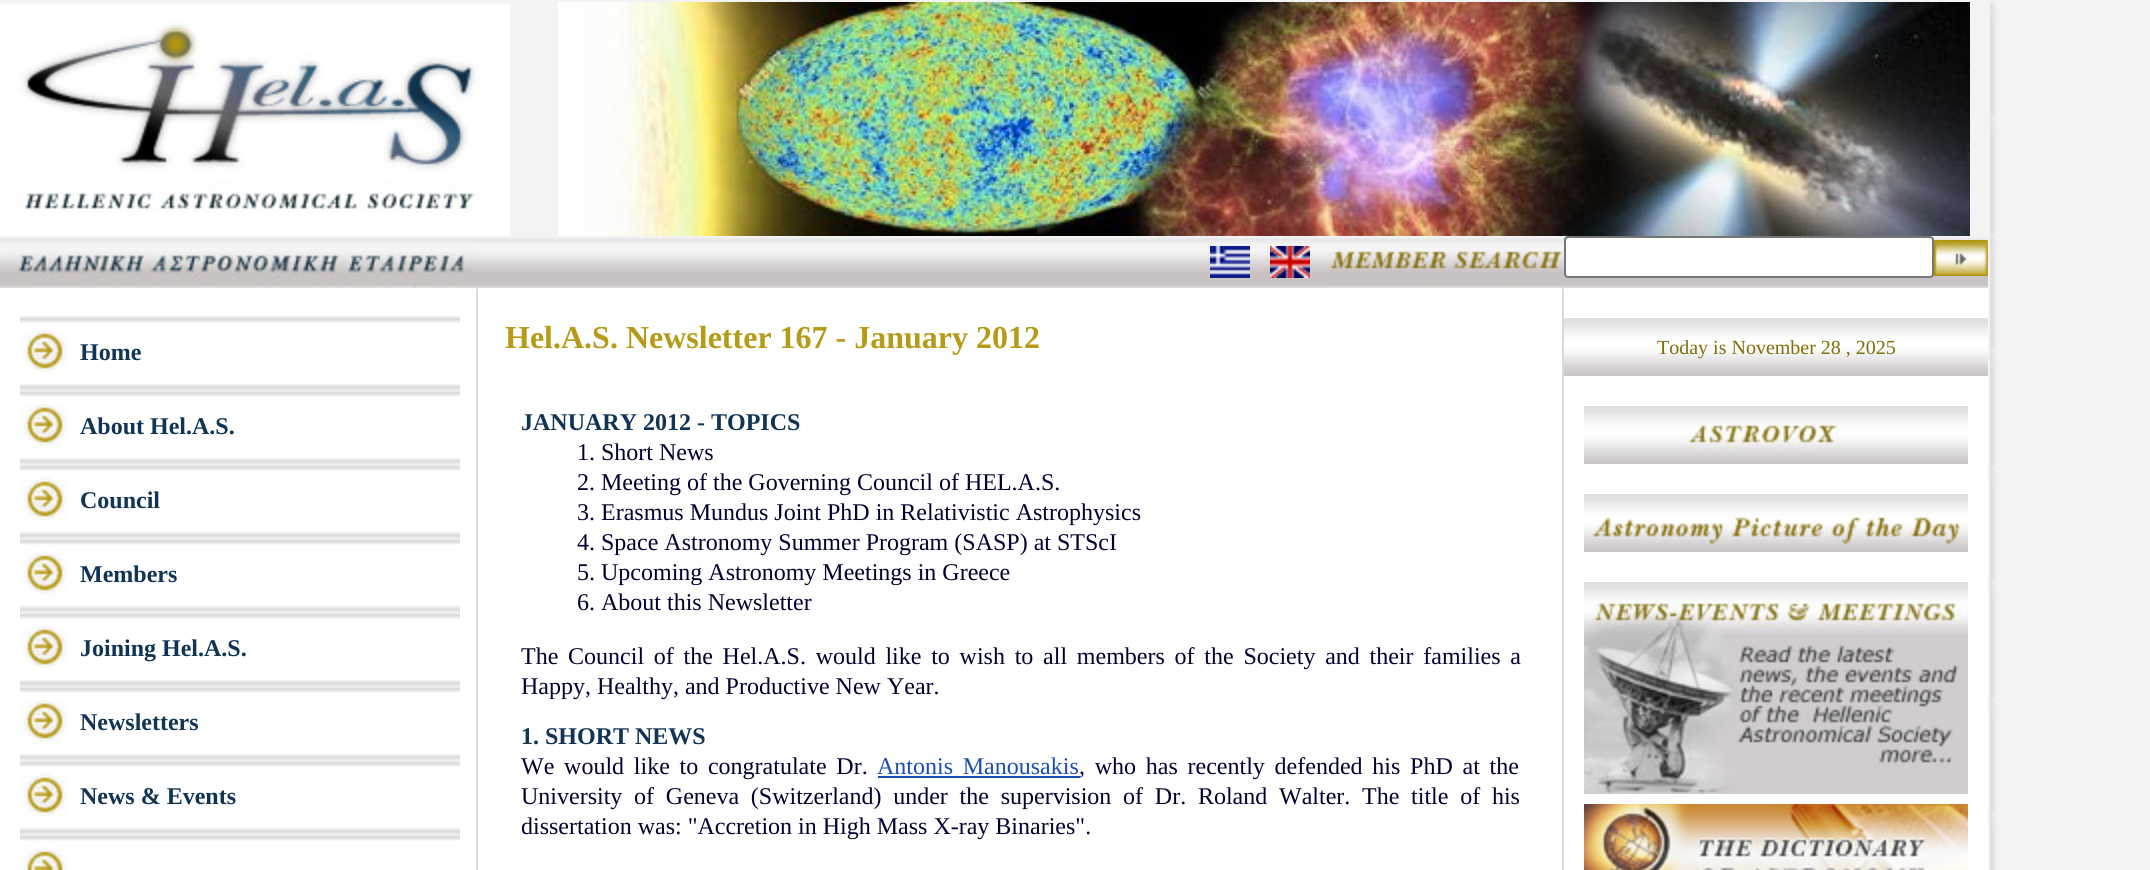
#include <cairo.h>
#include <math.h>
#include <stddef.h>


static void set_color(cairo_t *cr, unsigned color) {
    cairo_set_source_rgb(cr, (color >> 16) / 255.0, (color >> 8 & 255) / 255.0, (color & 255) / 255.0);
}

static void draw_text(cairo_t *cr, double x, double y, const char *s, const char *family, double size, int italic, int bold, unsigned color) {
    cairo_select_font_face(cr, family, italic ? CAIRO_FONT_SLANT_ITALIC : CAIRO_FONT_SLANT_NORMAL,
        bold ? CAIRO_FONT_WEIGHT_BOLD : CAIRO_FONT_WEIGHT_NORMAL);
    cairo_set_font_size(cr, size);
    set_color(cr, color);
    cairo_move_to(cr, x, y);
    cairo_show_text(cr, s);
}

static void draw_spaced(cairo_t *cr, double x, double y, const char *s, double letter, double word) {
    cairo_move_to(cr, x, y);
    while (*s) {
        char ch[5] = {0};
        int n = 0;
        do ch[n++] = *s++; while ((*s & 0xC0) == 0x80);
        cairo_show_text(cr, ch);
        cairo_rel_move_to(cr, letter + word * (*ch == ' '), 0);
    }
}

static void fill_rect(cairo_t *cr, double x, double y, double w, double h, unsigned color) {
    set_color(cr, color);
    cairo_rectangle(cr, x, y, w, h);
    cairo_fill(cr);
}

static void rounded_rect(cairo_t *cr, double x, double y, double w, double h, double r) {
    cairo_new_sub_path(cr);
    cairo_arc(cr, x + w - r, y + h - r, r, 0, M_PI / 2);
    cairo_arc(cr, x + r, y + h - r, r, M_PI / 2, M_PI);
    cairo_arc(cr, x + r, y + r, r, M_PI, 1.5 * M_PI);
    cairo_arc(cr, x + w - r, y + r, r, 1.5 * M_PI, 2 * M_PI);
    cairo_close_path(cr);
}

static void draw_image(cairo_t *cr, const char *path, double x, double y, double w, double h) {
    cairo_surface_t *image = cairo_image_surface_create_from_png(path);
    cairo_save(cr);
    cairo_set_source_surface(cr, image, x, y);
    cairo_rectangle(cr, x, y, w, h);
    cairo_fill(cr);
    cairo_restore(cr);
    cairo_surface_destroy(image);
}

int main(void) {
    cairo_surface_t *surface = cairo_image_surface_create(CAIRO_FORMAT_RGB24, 2150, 870);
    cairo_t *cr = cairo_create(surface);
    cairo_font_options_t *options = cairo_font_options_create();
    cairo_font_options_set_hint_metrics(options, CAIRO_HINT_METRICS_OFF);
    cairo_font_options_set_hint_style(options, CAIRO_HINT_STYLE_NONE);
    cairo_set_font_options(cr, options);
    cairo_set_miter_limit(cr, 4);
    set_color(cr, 0xF3F3F3);
    cairo_paint(cr);
    draw_image(cr, "assets/img1.png", 0, 4, 510, 232);
    draw_image(cr, "assets/img2.png", 558, 2, 1412, 234);
    draw_image(cr, "assets/img3.png", 1990, 2, 6, 868);
    draw_image(cr, "assets/img4.png", 0, 238, 1564, 50);
    draw_image(cr, "assets/img5.png", 1210, 246, 40, 32);
    draw_image(cr, "assets/img6.png", 1270, 246, 40, 32);
    draw_image(cr, "assets/img7.png", 1330, 251, 234, 33);
    draw_image(cr, "assets/img8.png", 1564, 238, 424, 50);
    set_color(cr, 0xFFFFFF);
    rounded_rect(cr, 1565, 237, 368, 40, 3);
    cairo_fill_preserve(cr);
    set_color(cr, 0x767676);
    cairo_stroke(cr);
    draw_image(cr, "assets/img9.png", 1934, 240, 54, 36);
    fill_rect(cr, 0, 288, 20, 582, 0xFFFFFF);
    fill_rect(cr, 20, 288, 440, 28, 0xFFFFFF);
    draw_image(cr, "assets/img10.png", 20, 316, 440, 74);
    draw_text(cr, 80, 360, "Home", "Liberation Serif", 24, 0, 1, 0x103456);
    draw_image(cr, "assets/img10.png", 20, 390, 440, 74);
    draw_text(cr, 80, 434, "About Hel.A.S.", "Liberation Serif", 24, 0, 1, 0x103456);
    draw_image(cr, "assets/img10.png", 20, 464, 440, 74);
    draw_text(cr, 80, 508, "Council", "Liberation Serif", 24, 0, 1, 0x103456);
    draw_image(cr, "assets/img10.png", 20, 538, 440, 74);
    draw_text(cr, 80, 582, "Members", "Liberation Serif", 24, 0, 1, 0x103456);
    draw_image(cr, "assets/img10.png", 20, 612, 440, 74);
    draw_text(cr, 80, 656, "Joining Hel.A.S.", "Liberation Serif", 24, 0, 1, 0x103456);
    draw_image(cr, "assets/img10.png", 20, 686, 440, 74);
    draw_text(cr, 80, 730, "Newsletters", "Liberation Serif", 24, 0, 1, 0x103456);
    draw_image(cr, "assets/img10.png", 20, 760, 440, 74);
    draw_text(cr, 80, 804, "News & Events", "Liberation Serif", 24, 0, 1, 0x103456);
    draw_image(cr, "assets/img11.png", 20, 834, 440, 36);
    fill_rect(cr, 460, 288, 16, 582, 0xFFFFFF);
    draw_image(cr, "assets/img12.png", 476, 288, 2, 582);
    fill_rect(cr, 478, 288, 1084, 582, 0xFFFFFF);
    draw_text(cr, 505, 348, "Hel.A.S. Newsletter 167 - January 2012", "Liberation Serif", 32, 0, 1, 0xB69B16);
    draw_text(cr, 521, 430, "JANUARY 2012 - TOPICS", "Liberation Serif", 24, 0, 1, 0x103456);
    draw_text(cr, 577, 460, "1. Short News", "Liberation Serif", 24, 0, 0, 0x000033);
    draw_text(cr, 577, 490, "2. Meeting of the Governing Council of HEL.A.S.", "Liberation Serif", 24, 0, 0, 0x000033);
    draw_text(cr, 577, 520, "3. Erasmus Mundus Joint PhD in Relativistic Astrophysics", "Liberation Serif", 24, 0, 0, 0x000033);
    draw_text(cr, 577, 550, "4. Space Astronomy Summer Program (SASP) at STScI", "Liberation Serif", 24, 0, 0, 0x000033);
    draw_text(cr, 577, 580, "5. Upcoming Astronomy Meetings in Greece", "Liberation Serif", 24, 0, 0, 0x000033);
    draw_text(cr, 577, 610, "6. About this Newsletter", "Liberation Serif", 24, 0, 0, 0x000033);
    draw_spaced(cr, 521, 664, "The Council of the Hel.A.S. would like to wish to all members of the Society and their families a", 0, 3.75);
    draw_text(cr, 521, 694, "Happy, Healthy, and Productive New Year.", "Liberation Serif", 24, 0, 0, 0x000033);
    draw_text(cr, 521, 744, "1. SHORT NEWS", "Liberation Serif", 24, 0, 1, 0x103456);
    cairo_select_font_face(cr, "Liberation Serif", CAIRO_FONT_SLANT_NORMAL, CAIRO_FONT_WEIGHT_NORMAL);
    set_color(cr, 0x000033);
    draw_spaced(cr, 521, 774, "We would like to congratulate Dr.", 0, 3.75);
    set_color(cr, 0x184EBA);
    draw_spaced(cr, 877, 774, "Antonis Manousakis", 0, 3.75);
    fill_rect(cr, 878, 776, 202, 2, 0x184EBA);
    set_color(cr, 0x000033);
    draw_spaced(cr, 1079, 774, ", who has recently defended his PhD at the", 0, 3.75);
    draw_spaced(cr, 521, 804, "University of Geneva (Switzerland) under the supervision of Dr. Roland Walter. The title of his", 0, 5.75);
    draw_text(cr, 521, 834, "dissertation was: \"Accretion in High Mass X-ray Binaries\".", "Liberation Serif", 24, 0, 0, 0x000033);
    draw_image(cr, "assets/img12.png", 1562, 288, 2, 582);
    fill_rect(cr, 1564, 288, 424, 582, 0xFFFFFF);
    draw_image(cr, "assets/img13.png", 1564, 318, 424, 58);
    draw_text(cr, 1657, 354, "Today is November 28 , 2025", "Liberation Serif", 20, 0, 0, 0x846D08);
    draw_image(cr, "assets/img14.png", 1584, 406, 384, 58);
    draw_image(cr, "assets/img15.png", 1584, 494, 384, 58);
    draw_image(cr, "assets/img16.png", 1584, 582, 384, 212);
    draw_image(cr, "assets/img17.png", 1584, 804, 384, 66);
    cairo_surface_write_to_png(surface, "output.png");
    cairo_font_options_destroy(options);
    cairo_destroy(cr);
    cairo_surface_destroy(surface);
    return 0;
}
